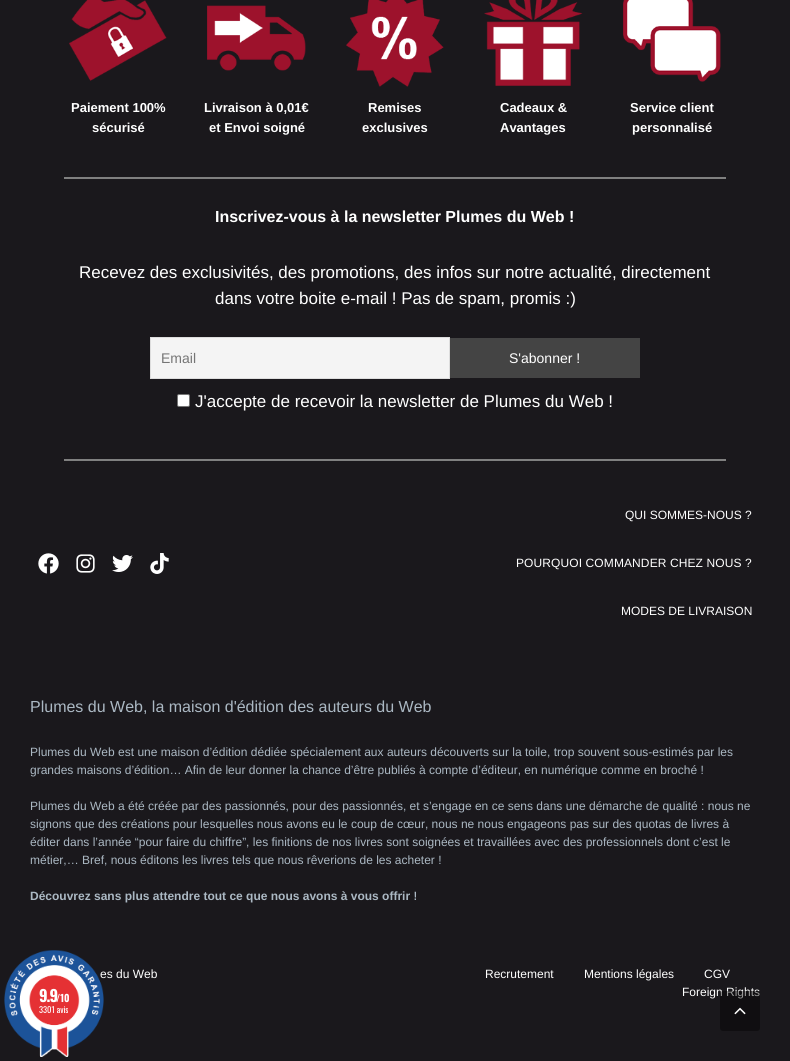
#include <cairo.h>
#include <math.h>
#include <stddef.h>


static void set_color(cairo_t *cr, unsigned color) {
    cairo_set_source_rgb(cr, (color >> 16) / 255.0, (color >> 8 & 255) / 255.0, (color & 255) / 255.0);
}

static void draw_text(cairo_t *cr, double x, double y, const char *s, const char *family, double size, int italic, int bold, unsigned color) {
    cairo_select_font_face(cr, family, italic ? CAIRO_FONT_SLANT_ITALIC : CAIRO_FONT_SLANT_NORMAL,
        bold ? CAIRO_FONT_WEIGHT_BOLD : CAIRO_FONT_WEIGHT_NORMAL);
    cairo_set_font_size(cr, size);
    set_color(cr, color);
    cairo_move_to(cr, x, y);
    cairo_show_text(cr, s);
}

static void draw_spaced(cairo_t *cr, double x, double y, const char *s, double letter, double word) {
    cairo_move_to(cr, x, y);
    while (*s) {
        char ch[5] = {0};
        int n = 0;
        do ch[n++] = *s++; while ((*s & 0xC0) == 0x80);
        cairo_show_text(cr, ch);
        cairo_rel_move_to(cr, letter + word * (*ch == ' '), 0);
    }
}

static void fill_rect(cairo_t *cr, double x, double y, double w, double h, unsigned color) {
    set_color(cr, color);
    cairo_rectangle(cr, x, y, w, h);
    cairo_fill(cr);
}

static void rounded_rect(cairo_t *cr, double x, double y, double w, double h, double r) {
    cairo_new_sub_path(cr);
    cairo_arc(cr, x + w - r, y + h - r, r, 0, M_PI / 2);
    cairo_arc(cr, x + r, y + h - r, r, M_PI / 2, M_PI);
    cairo_arc(cr, x + r, y + r, r, M_PI, 1.5 * M_PI);
    cairo_arc(cr, x + w - r, y + r, r, 1.5 * M_PI, 2 * M_PI);
    cairo_close_path(cr);
}

static void draw_image(cairo_t *cr, const char *path, double x, double y, double w, double h) {
    cairo_surface_t *image = cairo_image_surface_create_from_png(path);
    cairo_save(cr);
    cairo_set_source_surface(cr, image, x, y);
    cairo_rectangle(cr, x, y, w, h);
    cairo_fill(cr);
    cairo_restore(cr);
    cairo_surface_destroy(image);
}

int main(void) {
    cairo_surface_t *surface = cairo_image_surface_create(CAIRO_FORMAT_RGB24, 790, 1061);
    cairo_t *cr = cairo_create(surface);
    cairo_font_options_t *options = cairo_font_options_create();
    cairo_font_options_set_hint_metrics(options, CAIRO_HINT_METRICS_OFF);
    cairo_font_options_set_hint_style(options, CAIRO_HINT_STYLE_NONE);
    cairo_set_font_options(cr, options);
    cairo_set_miter_limit(cr, 4);
    set_color(cr, 0x1A181C);
    cairo_paint(cr);
    draw_image(cr, "assets/img1.png", 69, 0, 98, 81);
    draw_text(cr, 71, 112, "Paiement 100%", "Liberation Sans", 13, 0, 1, 0xFFFFFF);
    draw_text(cr, 92, 132, "sécurisé", "Liberation Sans", 13, 0, 1, 0xFFFFFF);
    draw_image(cr, "assets/img2.png", 207, 5, 99, 66);
    draw_text(cr, 204, 112, "Livraison à 0,01€", "Liberation Sans", 13, 0, 1, 0xFFFFFF);
    draw_text(cr, 209, 132, "et Envoi soigné", "Liberation Sans", 13, 0, 1, 0xFFFFFF);
    draw_image(cr, "assets/img3.png", 346, 0, 98, 87);
    draw_text(cr, 368, 112, "Remises", "Liberation Sans", 13, 0, 1, 0xFFFFFF);
    draw_text(cr, 362, 132, "exclusives", "Liberation Sans", 13, 0, 1, 0xFFFFFF);
    draw_image(cr, "assets/img4.png", 484, 0, 99, 86);
    draw_text(cr, 500, 112, "Cadeaux &", "Liberation Sans", 13, 0, 1, 0xFFFFFF);
    draw_text(cr, 500, 132, "Avantages", "Liberation Sans", 13, 0, 1, 0xFFFFFF);
    draw_image(cr, "assets/img5.png", 623, 0, 98, 82);
    draw_text(cr, 630, 112, "Service client", "Liberation Sans", 13, 0, 1, 0xFFFFFF);
    draw_text(cr, 632, 132, "personnalisé", "Liberation Sans", 13, 0, 1, 0xFFFFFF);
    fill_rect(cr, 64, 177, 662, 2, 0x808080);
    draw_text(cr, 215, 222, "Inscrivez-vous à la newsletter Plumes du Web !", "Liberation Sans", 16, 0, 1, 0xFFFFFF);
    draw_text(cr, 79, 278, "Recevez des exclusivités, des promotions, des infos sur notre actualité, directement", "Liberation Sans", 17, 0, 0, 0xFFFFFF);
    draw_text(cr, 215, 304, "dans votre boite e-mail ! Pas de spam, promis :)", "Liberation Sans", 17, 0, 0, 0xFFFFFF);
    set_color(cr, 0xF4F4F4);
    cairo_rectangle(cr, 150.5, 337.5, 299, 41);
    cairo_fill_preserve(cr);
    set_color(cr, 0xDDDDDD);
    cairo_set_line_width(cr, 1);
    cairo_stroke(cr);
    draw_text(cr, 161, 363, "Email", "Liberation Sans", 14, 0, 0, 0x757575);
    fill_rect(cr, 450, 338, 190, 40, 0x444444);
    draw_text(cr, 509, 363, "S'abonner !", "Liberation Sans", 14, 0, 0, 0xFFFFFF);
    rounded_rect(cr, 177.5, 394.5, 12, 12, 1.5);
    cairo_fill_preserve(cr);
    set_color(cr, 0x767676);
    cairo_stroke(cr);
    draw_text(cr, 195, 407, "J'accepte de recevoir la newsletter de Plumes du Web !", "Liberation Sans", 17, 0, 0, 0xFFFFFF);
    fill_rect(cr, 64, 459, 662, 2, 0x808080);
    draw_image(cr, "assets/img6.png", 38, 553, 21, 21);
    draw_image(cr, "assets/img7.png", 76, 554, 19, 19);
    draw_image(cr, "assets/img8.png", 112, 555, 21, 17);
    draw_image(cr, "assets/img9.png", 150, 553, 19, 21);
    draw_text(cr, 625, 519, "QUI SOMMES-NOUS ?", "Liberation Sans", 12, 0, 0, 0xFFFFFF);
    draw_spaced(cr, 516, 567, "POURQUOI COMMANDER CHEZ NOUS ?", 0.1, 0);
    draw_text(cr, 621, 615, "MODES DE LIVRAISON", "Liberation Sans", 12, 0, 0, 0xFFFFFF);
    draw_text(cr, 30, 712, "Plumes du Web, la maison d'édition des auteurs du Web", "Liberation Sans", 16, 0, 0, 0xABB8C3);
    draw_text(cr, 30, 756, "Plumes du Web est une maison d’édition dédiée spécialement aux auteurs découverts sur la toile, trop souvent sous-estimés par les", "Liberation Sans", 12, 0, 0, 0xABB8C3);
    draw_text(cr, 30, 774, "grandes maisons d’édition… Afin de leur donner la chance d’être publiés à compte d’éditeur, en numérique comme en broché !", "Liberation Sans", 12, 0, 0, 0xABB8C3);
    draw_text(cr, 30, 810, "Plumes du Web a été créée par des passionnés, pour des passionnés, et s’engage en ce sens dans une démarche de qualité : nous ne", "Liberation Sans", 12, 0, 0, 0xABB8C3);
    draw_text(cr, 30, 828, "signons que des créations pour lesquelles nous avons eu le coup de cœur, nous ne nous engageons pas sur des quotas de livres à", "Liberation Sans", 12, 0, 0, 0xABB8C3);
    draw_text(cr, 30, 846, "éditer dans l’année “pour faire du chiffre”, les finitions de nos livres sont soignées et travaillées avec des professionnels dont c’est le", "Liberation Sans", 12, 0, 0, 0xABB8C3);
    draw_text(cr, 30, 864, "métier,… Bref, nous éditons les livres tels que nous rêverions de les acheter !", "Liberation Sans", 12, 0, 0, 0xABB8C3);
    draw_text(cr, 30, 900, "Découvrez sans plus attendre tout ce que nous avons à vous offrir !", "Liberation Sans", 12, 0, 1, 0xABB8C3);
    draw_text(cr, 100, 978, "es du Web", "Liberation Sans", 12, 0, 0, 0xFFFFFF);
    draw_text(cr, 485, 978, "Recrutement", "Liberation Sans", 12, 0, 0, 0xFFFFFF);
    draw_text(cr, 584, 978, "Mentions légales", "Liberation Sans", 12, 0, 0, 0xFFFFFF);
    draw_text(cr, 704, 978, "CGV", "Liberation Sans", 12, 0, 0, 0xFFFFFF);
    draw_text(cr, 682, 996, "Foreign Rights", "Liberation Sans", 12, 0, 0, 0xFFFFFF);
    draw_image(cr, "assets/img10.png", 4, 950, 100, 107);
    cairo_select_font_face(cr, "Oswald", CAIRO_FONT_SLANT_NORMAL, CAIRO_FONT_WEIGHT_BOLD);
    cairo_set_font_size(cr, 16);
    draw_spaced(cr, 39, 1002, "9.9", -1, 0);
    draw_text(cr, 56, 1002, "/10", "Oswald", 10, 0, 1, 0xFFFFFF);
    draw_text(cr, 39, 1013, "3301 avis", "Oswald", 8.5, 0, 0, 0xFFFFFF);
    cairo_set_source_rgba(cr, 0, 0, 0, 0.4);
    rounded_rect(cr, 720, 991, 40, 40, 3);
    cairo_fill(cr);
    draw_image(cr, "assets/img11.png", 734, 1007, 12, 8);
    cairo_surface_write_to_png(surface, "output.png");
    cairo_font_options_destroy(options);
    cairo_destroy(cr);
    cairo_surface_destroy(surface);
    return 0;
}
